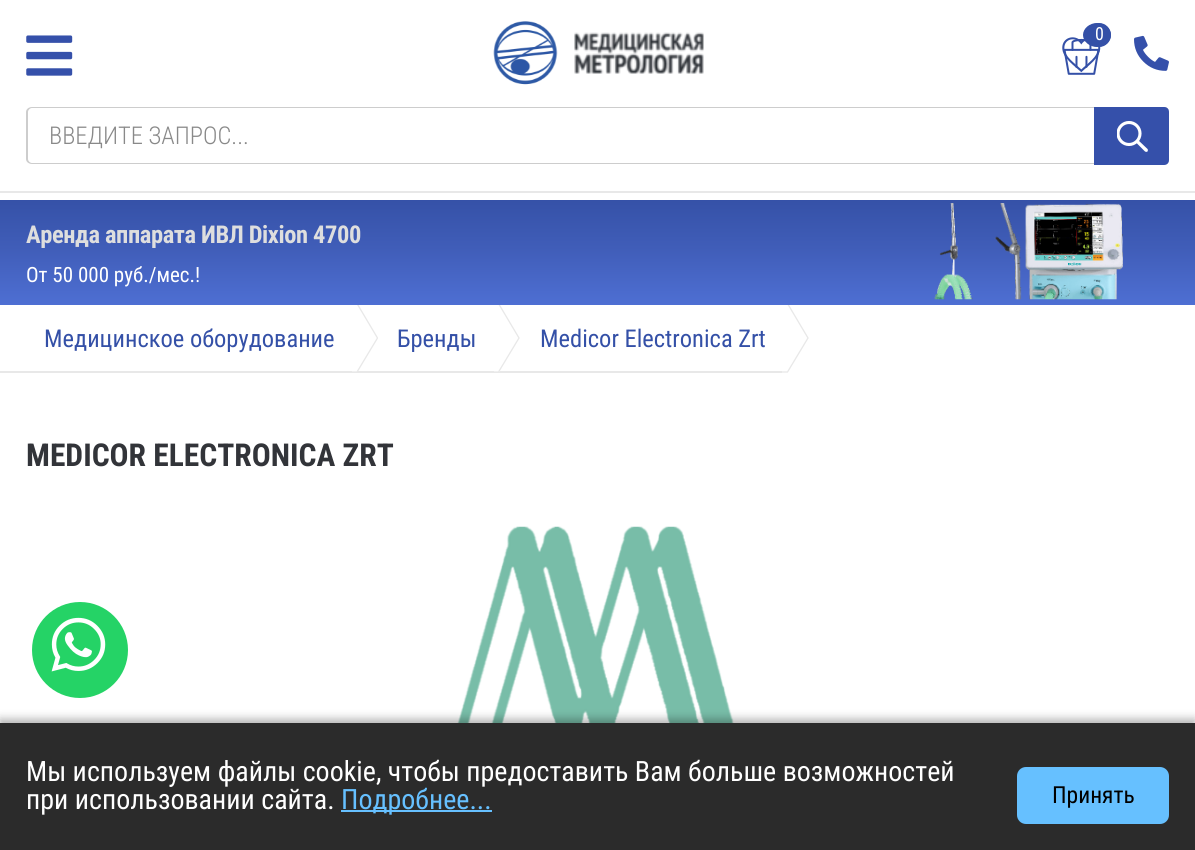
#include <cairo.h>
#include <math.h>
#include <stddef.h>


static void set_color(cairo_t *cr, unsigned color) {
    cairo_set_source_rgb(cr, (color >> 16) / 255.0, (color >> 8 & 255) / 255.0, (color & 255) / 255.0);
}

static void draw_text(cairo_t *cr, double x, double y, const char *s, const char *family, double size, int italic, int bold, unsigned color) {
    cairo_select_font_face(cr, family, italic ? CAIRO_FONT_SLANT_ITALIC : CAIRO_FONT_SLANT_NORMAL,
        bold ? CAIRO_FONT_WEIGHT_BOLD : CAIRO_FONT_WEIGHT_NORMAL);
    cairo_set_font_size(cr, size);
    set_color(cr, color);
    cairo_move_to(cr, x, y);
    cairo_show_text(cr, s);
}

static void draw_spaced(cairo_t *cr, double x, double y, const char *s, double letter, double word) {
    cairo_move_to(cr, x, y);
    while (*s) {
        char ch[5] = {0};
        int n = 0;
        do ch[n++] = *s++; while ((*s & 0xC0) == 0x80);
        cairo_show_text(cr, ch);
        cairo_rel_move_to(cr, letter + word * (*ch == ' '), 0);
    }
}

static void fill_rect(cairo_t *cr, double x, double y, double w, double h, unsigned color) {
    set_color(cr, color);
    cairo_rectangle(cr, x, y, w, h);
    cairo_fill(cr);
}

static void rounded_rect(cairo_t *cr, double x, double y, double w, double h, double r) {
    cairo_new_sub_path(cr);
    cairo_arc(cr, x + w - r, y + h - r, r, 0, M_PI / 2);
    cairo_arc(cr, x + r, y + h - r, r, M_PI / 2, M_PI);
    cairo_arc(cr, x + r, y + r, r, M_PI, 1.5 * M_PI);
    cairo_arc(cr, x + w - r, y + r, r, 1.5 * M_PI, 2 * M_PI);
    cairo_close_path(cr);
}

static void draw_shadow(cairo_t *cr, double x, double y, double w, double h, double r, double blur, double alpha) {
    cairo_push_group_with_content(cr, CAIRO_CONTENT_ALPHA);
    cairo_set_operator(cr, CAIRO_OPERATOR_SOURCE);
    for (int i = 15; i >= -15 && fmin(w, h) + blur * i / 3 > 0; i -= 2) {
        double e = blur * i / 6;
        cairo_set_source_rgba(cr, 0, 0, 0, alpha * erfc((i - 1) / 8.5) / 2);
        rounded_rect(cr, x - e, y - e, w + 2 * e, h + 2 * e, fmax(0, fmin(r + e + blur * .6, fmin(w, h) / 2 + e)));
        cairo_fill(cr);
    }
    cairo_pattern_t *soft = cairo_pop_group(cr);
    cairo_mask(cr, soft);
    cairo_pattern_destroy(soft);
}

static void draw_image(cairo_t *cr, const char *path, double x, double y, double w, double h) {
    cairo_surface_t *image = cairo_image_surface_create_from_png(path);
    cairo_save(cr);
    cairo_set_source_surface(cr, image, x, y);
    cairo_rectangle(cr, x, y, w, h);
    cairo_fill(cr);
    cairo_restore(cr);
    cairo_surface_destroy(image);
}

int main(void) {
    cairo_surface_t *surface = cairo_image_surface_create(CAIRO_FORMAT_RGB24, 1195, 850);
    cairo_t *cr = cairo_create(surface);
    cairo_font_options_t *options = cairo_font_options_create();
    cairo_font_options_set_hint_metrics(options, CAIRO_HINT_METRICS_OFF);
    cairo_font_options_set_hint_style(options, CAIRO_HINT_STYLE_NONE);
    cairo_set_font_options(cr, options);
    cairo_set_miter_limit(cr, 4);
    cairo_pattern_t *gradient;
    set_color(cr, 0xFFFFFF);
    cairo_paint(cr);
    fill_rect(cr, 0, 191, 1195, 2, 0xE8E8E8);
    draw_image(cr, "assets/img1.png", 26, 35, 47, 41);
    draw_image(cr, "assets/img2.png", 1063, 38, 37, 37);
    set_color(cr, 0x3450A7);
    cairo_new_path(cr);
    cairo_move_to(cr, 1097, 23);
    cairo_curve_to(cr, 1104.5, 23, 1111, 28.5, 1111, 35);
    cairo_curve_to(cr, 1111, 41.5, 1104.5, 47, 1097, 47);
    cairo_curve_to(cr, 1089.5, 47, 1083, 41.5, 1083, 35);
    cairo_curve_to(cr, 1083, 28.5, 1089.5, 23, 1097, 23);
    cairo_close_path(cr);
    cairo_fill(cr);
    draw_image(cr, "assets/img3.png", 1062, 37, 39, 36);
    cairo_arc(cr, 1099, 35, 12, 0, 2 * M_PI);
    cairo_fill(cr);
    draw_text(cr, 1095, 40, "0", "Roboto Condensed", 18, 0, 0, 0xFFFFFF);
    draw_image(cr, "assets/img4.png", 574, 32, 130, 42);
    draw_image(cr, "assets/img5.png", 493, 21, 65, 64);
    draw_image(cr, "assets/img6.png", 1134, 35, 35, 36);
    set_color(cr, 0xCDCDCD);
    cairo_set_fill_rule(cr, CAIRO_FILL_RULE_EVEN_ODD);
    cairo_new_path(cr);
    cairo_move_to(cr, 32, 107);
    cairo_line_to(cr, 1164, 107);
    cairo_curve_to(cr, 1167, 107, 1169, 109, 1169, 112);
    cairo_line_to(cr, 1169, 159);
    cairo_curve_to(cr, 1169, 162, 1167, 164, 1164, 164);
    cairo_line_to(cr, 32, 164);
    cairo_curve_to(cr, 29, 164, 26, 162, 26, 159);
    cairo_line_to(cr, 26, 112);
    cairo_curve_to(cr, 26, 109, 29, 107, 32, 107);
    cairo_close_path(cr);
    cairo_move_to(cr, 32, 108);
    cairo_line_to(cr, 1164, 108);
    cairo_curve_to(cr, 1167, 108, 1169, 110, 1169, 112);
    cairo_line_to(cr, 1169, 159);
    cairo_curve_to(cr, 1169, 161, 1167, 163, 1164, 163);
    cairo_line_to(cr, 32, 163);
    cairo_curve_to(cr, 30, 163, 28, 161, 28, 159);
    cairo_line_to(cr, 28, 112);
    cairo_curve_to(cr, 28, 110, 30, 108, 32, 108);
    cairo_close_path(cr);
    cairo_fill(cr);
    draw_text(cr, 49, 144, "ВВЕДИТЕ ЗАПРОС...", "Roboto Condensed Light", 24.5, 0, 0, 0x898989);
    set_color(cr, 0x3550AA);
    cairo_new_path(cr);
    cairo_move_to(cr, 1094, 107);
    cairo_line_to(cr, 1164, 107);
    cairo_curve_to(cr, 1167, 107, 1169, 109, 1169, 112);
    cairo_line_to(cr, 1169, 160);
    cairo_curve_to(cr, 1169, 163, 1167, 165, 1164, 165);
    cairo_line_to(cr, 1094, 165);
    cairo_close_path(cr);
    cairo_fill(cr);
    cairo_save(cr);
    cairo_set_fill_rule(cr, CAIRO_FILL_RULE_WINDING);
    cairo_rectangle(cr, 1117, 121, 31, 31);
    cairo_clip(cr);
    cairo_arc(cr, 1129, 133.5, 11, 0, 2 * M_PI);
    set_color(cr, 0xFFFFFF);
    cairo_set_line_width(cr, 3.1);
    cairo_stroke(cr);
    cairo_restore(cr);
    set_color(cr, 0xFFFFFF);
    cairo_new_path(cr);
    cairo_move_to(cr, 1137.5, 139.5);
    cairo_line_to(cr, 1147.5, 149);
    cairo_curve_to(cr, 1148, 149.5, 1148, 150.5, 1147.5, 151.5);
    cairo_curve_to(cr, 1147, 152, 1146, 152, 1145, 151.5);
    cairo_line_to(cr, 1135.5, 142);
    cairo_close_path(cr);
    cairo_fill(cr);
    gradient = cairo_pattern_create_linear(598, 199, 598, 305);
    cairo_pattern_add_color_stop_rgba(gradient, 0, 0.208, 0.318, 0.655, 1);
    cairo_pattern_add_color_stop_rgba(gradient, 0.46, 0.251, 0.365, 0.722, 1);
    cairo_pattern_add_color_stop_rgba(gradient, 1, 0.306, 0.435, 0.827, 1);
    cairo_set_source(cr, gradient);
    cairo_pattern_destroy(gradient);
    cairo_rectangle(cr, 0, 200, 1195, 105);
    cairo_fill(cr);
    cairo_select_font_face(cr, "Roboto Condensed", CAIRO_FONT_SLANT_NORMAL, CAIRO_FONT_WEIGHT_BOLD);
    set_color(cr, 0xDEDEDE);
    draw_spaced(cr, 26, 243, "Аренда аппарата ИВЛ Dixion 4700", -0.4, 0);
    draw_text(cr, 26, 282, "От 50 000 руб./мес.!", "Roboto Condensed", 21, 0, 0, 0xFFFFFF);
    draw_image(cr, "assets/img7.png", 934, 203, 189, 97);
    draw_text(cr, 44, 347, "Медицинское оборудование", "Roboto Condensed", 24.5, 0, 0, 0x3450A7);
    fill_rect(cr, 0, 371, 782, 2, 0xE8E8E8);
    cairo_save(cr);
    cairo_set_fill_rule(cr, CAIRO_FILL_RULE_WINDING);
    cairo_rectangle(cr, 352, 305, 26, 68);
    cairo_clip(cr);
    set_color(cr, 0xFFFFFF);
    cairo_new_path(cr);
    cairo_move_to(cr, 211, 303);
    cairo_line_to(cr, 357, 303);
    cairo_line_to(cr, 377, 338);
    cairo_line_to(cr, 357, 372);
    cairo_line_to(cr, 211, 372);
    cairo_close_path(cr);
    cairo_fill(cr);
    cairo_new_path(cr);
    cairo_move_to(cr, 210.5, 303.5);
    cairo_line_to(cr, 357, 303.5);
    cairo_line_to(cr, 377.5, 338);
    cairo_line_to(cr, 357, 372);
    cairo_line_to(cr, 210.5, 372);
    cairo_close_path(cr);
    set_color(cr, 0xE8E8E8);
    cairo_set_line_width(cr, 1.3);
    cairo_stroke(cr);
    cairo_restore(cr);
    draw_text(cr, 397, 347, "Бренды", "Roboto Condensed", 24.5, 0, 0, 0x3450A7);
    cairo_save(cr);
    cairo_set_fill_rule(cr, CAIRO_FILL_RULE_WINDING);
    cairo_rectangle(cr, 494, 305, 26, 68);
    cairo_clip(cr);
    set_color(cr, 0xFFFFFF);
    cairo_new_path(cr);
    cairo_move_to(cr, 352, 303);
    cairo_line_to(cr, 499, 303);
    cairo_line_to(cr, 519, 338);
    cairo_line_to(cr, 499, 372);
    cairo_line_to(cr, 352, 372);
    cairo_close_path(cr);
    cairo_fill(cr);
    cairo_new_path(cr);
    cairo_move_to(cr, 352.5, 303.5);
    cairo_line_to(cr, 498.5, 303.5);
    cairo_line_to(cr, 519, 338);
    cairo_line_to(cr, 498.5, 372);
    cairo_line_to(cr, 352.5, 372);
    cairo_close_path(cr);
    set_color(cr, 0xE8E8E8);
    cairo_set_line_width(cr, 1.3);
    cairo_stroke(cr);
    cairo_restore(cr);
    draw_text(cr, 540, 347, "Medicor Electronica Zrt", "Roboto Condensed", 24.5, 0, 0, 0x3450A7);
    cairo_save(cr);
    cairo_set_fill_rule(cr, CAIRO_FILL_RULE_WINDING);
    cairo_rectangle(cr, 782, 305, 27, 68);
    cairo_clip(cr);
    cairo_new_path(cr);
    cairo_move_to(cr, 641, 303.5);
    cairo_line_to(cr, 787.5, 303.5);
    cairo_line_to(cr, 808, 338);
    cairo_line_to(cr, 787.5, 372);
    cairo_line_to(cr, 641, 372);
    cairo_close_path(cr);
    set_color(cr, 0xE8E8E8);
    cairo_set_line_width(cr, 1.3);
    cairo_stroke(cr);
    cairo_restore(cr);
    draw_text(cr, 26, 466, "MEDICOR ELECTRONICA ZRT", "Roboto Condensed", 31.5, 0, 1, 0x323439);
    draw_image(cr, "assets/img8.png", 457, 526, 277, 197);
    set_color(cr, 0x25D366);
    cairo_arc(cr, 80, 650, 48, 0, 2 * M_PI);
    cairo_fill(cr);
    draw_image(cr, "assets/img9.png", 51, 617, 55, 55);
    set_color(cr, 0x000000);
    draw_shadow(cr, 0, 719, 1195, 128, 0, 4.5, 0.3);
    fill_rect(cr, 0, 723, 1195, 127, 0x2B2B2B);
    draw_text(cr, 26, 781, "Мы используем файлы cookie, чтобы предоставить Вам больше возможностей", "Roboto Condensed", 28, 0, 0, 0xFFFFFF);
    draw_text(cr, 26, 809, "при использовании сайта.", "Roboto Condensed", 28, 0, 0, 0xFFFFFF);
    fill_rect(cr, 341, 810, 151, 2, 0x66C0FF);
    draw_text(cr, 341, 809, "Подробнее...", "Roboto Condensed", 28, 0, 0, 0x66C0FF);
    rounded_rect(cr, 1017, 767, 152, 57, 9);
    cairo_fill(cr);
    draw_text(cr, 1052, 803, "Принять", "Roboto Condensed", 23.5, 0, 0, 0x000000);
    cairo_surface_write_to_png(surface, "output.png");
    cairo_font_options_destroy(options);
    cairo_destroy(cr);
    cairo_surface_destroy(surface);
    return 0;
}
